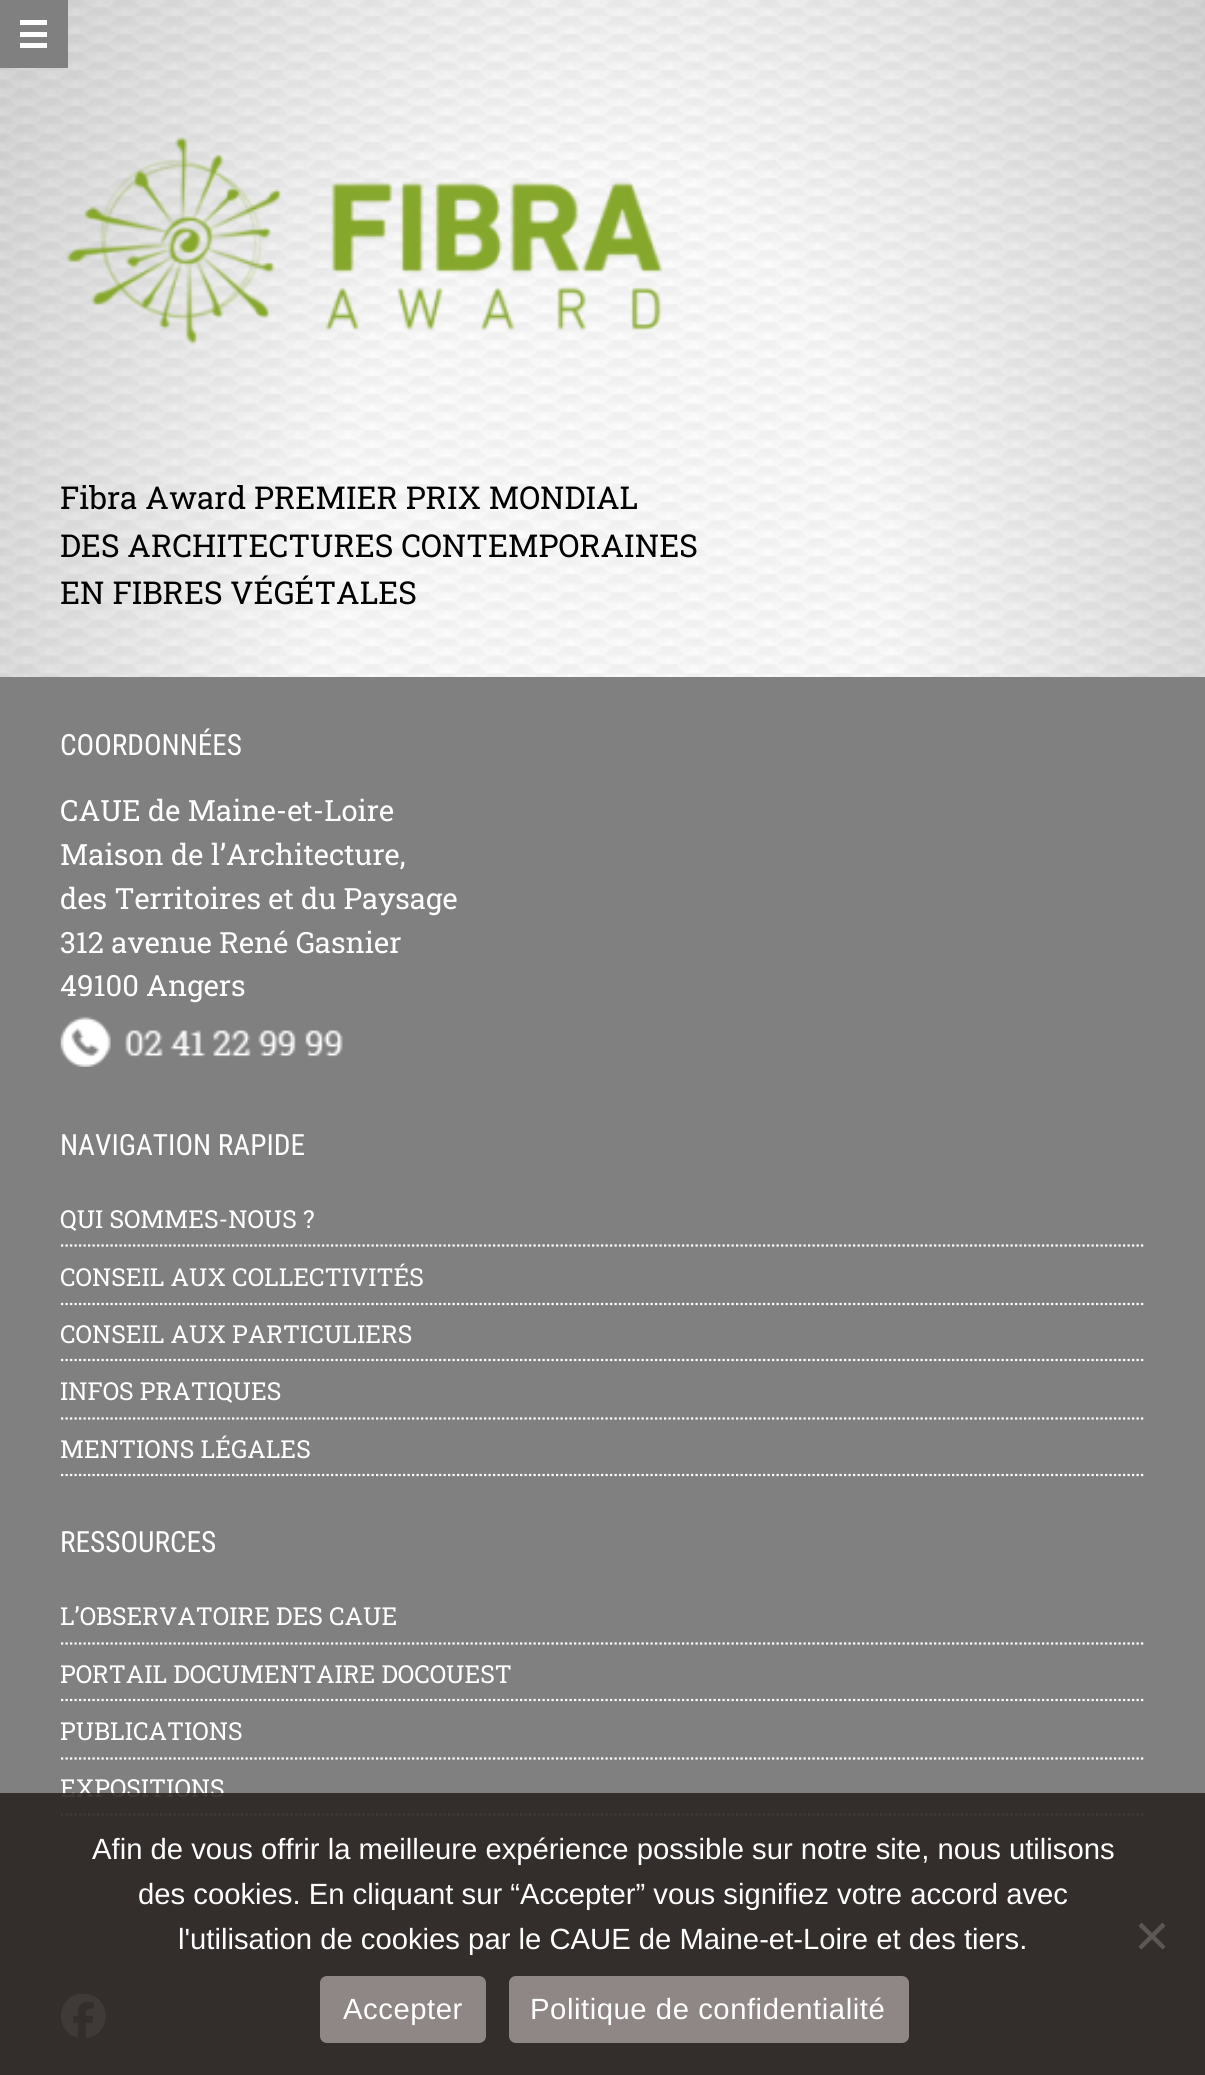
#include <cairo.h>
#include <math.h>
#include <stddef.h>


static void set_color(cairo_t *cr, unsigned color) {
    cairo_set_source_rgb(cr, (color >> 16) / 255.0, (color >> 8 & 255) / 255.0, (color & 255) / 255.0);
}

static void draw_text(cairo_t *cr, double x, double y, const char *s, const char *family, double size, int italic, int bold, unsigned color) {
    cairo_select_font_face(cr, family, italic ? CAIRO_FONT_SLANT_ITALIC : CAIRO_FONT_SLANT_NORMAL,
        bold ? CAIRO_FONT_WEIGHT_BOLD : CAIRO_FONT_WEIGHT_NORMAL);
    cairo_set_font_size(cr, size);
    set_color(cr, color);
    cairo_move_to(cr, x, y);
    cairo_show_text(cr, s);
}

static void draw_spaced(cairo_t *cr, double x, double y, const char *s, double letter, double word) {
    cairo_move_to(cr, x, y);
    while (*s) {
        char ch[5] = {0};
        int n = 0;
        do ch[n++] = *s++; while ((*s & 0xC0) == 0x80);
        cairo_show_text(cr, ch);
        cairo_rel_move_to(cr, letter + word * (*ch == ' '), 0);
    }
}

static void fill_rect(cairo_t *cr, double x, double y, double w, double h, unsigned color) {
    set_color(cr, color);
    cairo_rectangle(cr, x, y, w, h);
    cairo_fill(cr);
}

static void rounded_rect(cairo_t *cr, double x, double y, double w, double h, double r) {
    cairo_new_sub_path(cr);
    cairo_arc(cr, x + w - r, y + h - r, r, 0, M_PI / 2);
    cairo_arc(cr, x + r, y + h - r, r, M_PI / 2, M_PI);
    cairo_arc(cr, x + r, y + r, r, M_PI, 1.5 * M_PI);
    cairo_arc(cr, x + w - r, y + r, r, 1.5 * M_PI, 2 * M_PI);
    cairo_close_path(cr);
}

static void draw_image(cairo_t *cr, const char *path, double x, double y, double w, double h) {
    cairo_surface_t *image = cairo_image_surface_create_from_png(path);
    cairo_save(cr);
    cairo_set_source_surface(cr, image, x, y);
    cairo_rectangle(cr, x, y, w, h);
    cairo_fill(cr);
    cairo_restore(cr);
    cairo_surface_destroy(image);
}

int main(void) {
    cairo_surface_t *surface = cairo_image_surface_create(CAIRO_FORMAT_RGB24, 1205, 2075);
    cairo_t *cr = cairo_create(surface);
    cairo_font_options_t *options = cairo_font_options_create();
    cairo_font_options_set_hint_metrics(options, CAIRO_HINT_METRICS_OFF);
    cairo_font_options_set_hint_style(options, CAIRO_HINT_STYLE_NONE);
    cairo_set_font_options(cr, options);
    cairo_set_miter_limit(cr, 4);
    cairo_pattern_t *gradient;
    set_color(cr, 0xFFFFFF);
    cairo_paint(cr);
    gradient = cairo_pattern_create_radial(0, 0, 0, 0, 0, 1);
    cairo_pattern_set_matrix(gradient, &(cairo_matrix_t){1.0 / 853, 0, 0, 1.0 / 1468, -1.0 * 603 / 853, -1.0 * 658 / 1468});
    cairo_pattern_add_color_stop_rgba(gradient, 0.33, 1, 1, 1, 1);
    cairo_pattern_add_color_stop_rgba(gradient, 1, 0.6, 0.6, 0.6, 1);
    cairo_set_source(cr, gradient);
    cairo_pattern_destroy(gradient);
    cairo_rectangle(cr, 0, 0, 1205, 677);
    cairo_fill(cr);
    draw_image(cr, "assets/img1.png", 0, 0, 1205, 677);
    fill_rect(cr, 0, 0, 68, 68, 0x808080);
    fill_rect(cr, 20, 32, 27, 5, 0xFFFFFF);
    fill_rect(cr, 20, 20, 27, 5, 0xFFFFFF);
    fill_rect(cr, 20, 43, 27, 5, 0xFFFFFF);
    draw_image(cr, "assets/img2.png", 67, 137, 596, 208);
    draw_text(cr, 60, 509, "Fibra Award PREMIER PRIX MONDIAL", "Roboto Slab", 31.5, 0, 0, 0x000000);
    draw_text(cr, 60, 557, "DES ARCHITECTURES CONTEMPORAINES", "Roboto Slab", 31.5, 0, 0, 0x000000);
    draw_text(cr, 60, 604, "EN FIBRES VÉGÉTALES", "Roboto Slab", 31.5, 0, 0, 0x000000);
    fill_rect(cr, 0, 677, 1205, 1398, 0x808080);
    draw_text(cr, 60, 755, "COORDONNÉES", "Roboto Condensed", 29.25, 0, 0, 0xFFFFFF);
    draw_text(cr, 60, 821, "CAUE de Maine-et-Loire", "Roboto Slab", 29.25, 0, 0, 0xFFFFFF);
    draw_text(cr, 60, 865, "Maison de l’Architecture,", "Roboto Slab", 29.25, 0, 0, 0xFFFFFF);
    draw_text(cr, 60, 909, "des Territoires et du Paysage", "Roboto Slab", 29.25, 0, 0, 0xFFFFFF);
    draw_text(cr, 60, 953, "312 avenue René Gasnier", "Roboto Slab", 29.25, 0, 0, 0xFFFFFF);
    draw_text(cr, 60, 996, "49100 Angers", "Roboto Slab", 29.25, 0, 0, 0xFFFFFF);
    draw_image(cr, "assets/img3.png", 60, 1016, 283, 51);
    draw_text(cr, 60, 1155, "NAVIGATION RAPIDE", "Roboto Condensed", 29.25, 0, 0, 0xFFFFFF);
    cairo_new_path(cr);
    cairo_move_to(cr, 61, 1245.5);
    cairo_line_to(cr, 1145, 1245.5);
    cairo_set_line_width(cr, 2.2);
    cairo_set_dash(cr, (double[]){2.25, 2.25}, 2, 0);
    cairo_stroke(cr);
    draw_text(cr, 60, 1228, "QUI SOMMES-NOUS ?", "Roboto Slab", 24.75, 0, 0, 0xFFFFFF);
    cairo_new_path(cr);
    cairo_move_to(cr, 61, 1304);
    cairo_line_to(cr, 1145, 1304);
    cairo_stroke(cr);
    draw_text(cr, 60, 1286, "CONSEIL AUX COLLECTIVITÉS", "Roboto Slab", 24.75, 0, 0, 0xFFFFFF);
    cairo_new_path(cr);
    cairo_move_to(cr, 61, 1360);
    cairo_line_to(cr, 1145, 1360);
    cairo_stroke(cr);
    draw_text(cr, 60, 1343, "CONSEIL AUX PARTICULIERS", "Roboto Slab", 24.75, 0, 0, 0xFFFFFF);
    cairo_new_path(cr);
    cairo_move_to(cr, 61, 1418.5);
    cairo_line_to(cr, 1145, 1418.5);
    cairo_stroke(cr);
    draw_text(cr, 60, 1400, "INFOS PRATIQUES", "Roboto Slab", 24.75, 0, 0, 0xFFFFFF);
    cairo_new_path(cr);
    cairo_move_to(cr, 61, 1475);
    cairo_line_to(cr, 1145, 1475);
    cairo_stroke(cr);
    draw_text(cr, 60, 1458, "MENTIONS LÉGALES", "Roboto Slab", 24.75, 0, 0, 0xFFFFFF);
    draw_text(cr, 60, 1552, "RESSOURCES", "Roboto Condensed", 29.25, 0, 0, 0xFFFFFF);
    cairo_new_path(cr);
    cairo_move_to(cr, 61, 1643.5);
    cairo_line_to(cr, 1145, 1643.5);
    cairo_stroke(cr);
    draw_text(cr, 60, 1625, "L’OBSERVATOIRE DES CAUE", "Roboto Slab", 24.75, 0, 0, 0xFFFFFF);
    cairo_new_path(cr);
    cairo_move_to(cr, 61, 1700);
    cairo_line_to(cr, 1145, 1700);
    cairo_stroke(cr);
    draw_text(cr, 60, 1683, "PORTAIL DOCUMENTAIRE DOCOUEST", "Roboto Slab", 24.75, 0, 0, 0xFFFFFF);
    cairo_new_path(cr);
    cairo_move_to(cr, 61, 1758.5);
    cairo_line_to(cr, 1145, 1758.5);
    cairo_stroke(cr);
    draw_text(cr, 60, 1740, "PUBLICATIONS", "Roboto Slab", 24.75, 0, 0, 0xFFFFFF);
    cairo_new_path(cr);
    cairo_move_to(cr, 61, 1814.5);
    cairo_line_to(cr, 1145, 1814.5);
    cairo_stroke(cr);
    draw_text(cr, 60, 1797, "EXPOSITIONS", "Roboto Slab", 24.75, 0, 0, 0xFFFFFF);
    draw_image(cr, "assets/img4.png", 61, 1994, 45, 45);
    cairo_set_source_rgba(cr, 0.169, 0.145, 0.137, 0.9);
    cairo_rectangle(cr, 0, 1793, 1205, 282);
    cairo_fill(cr);
    draw_text(cr, 92, 1859, "Afin de vous offrir la meilleure expérience possible sur notre site, nous utilisons", "Liberation Sans", 29.25, 0, 0, 0xFFFFFF);
    draw_text(cr, 138, 1904, "des cookies. En cliquant sur “Accepter” vous signifiez votre accord avec", "Liberation Sans", 29.25, 0, 0, 0xFFFFFF);
    draw_text(cr, 178, 1949, "l'utilisation de cookies par le CAUE de Maine-et-Loire et des tiers.", "Liberation Sans", 29.25, 0, 0, 0xFFFFFF);
    set_color(cr, 0x5A5756);
    cairo_new_path(cr);
    cairo_move_to(cr, 1162.5, 1922.5);
    cairo_line_to(cr, 1165.5, 1926);
    cairo_line_to(cr, 1141.5, 1949.5);
    cairo_line_to(cr, 1138.5, 1946.5);
    cairo_close_path(cr);
    cairo_fill(cr);
    cairo_new_path(cr);
    cairo_move_to(cr, 1138.5, 1926);
    cairo_line_to(cr, 1141.5, 1922.5);
    cairo_line_to(cr, 1165.5, 1946.5);
    cairo_line_to(cr, 1162.5, 1949.5);
    cairo_close_path(cr);
    cairo_fill(cr);
    set_color(cr, 0x8E8786);
    rounded_rect(cr, 320, 1976, 166, 67, 7);
    cairo_fill(cr);
    set_color(cr, 0xFFFFFF);
    draw_spaced(cr, 343, 2019, "Accepter", 0.55, 0);
    set_color(cr, 0x8E8786);
    rounded_rect(cr, 509, 1976, 400, 67, 7);
    cairo_fill(cr);
    set_color(cr, 0xFFFFFF);
    draw_spaced(cr, 530, 2019, "Politique de confidentialité", 0.55, 0);
    cairo_surface_write_to_png(surface, "output.png");
    cairo_font_options_destroy(options);
    cairo_destroy(cr);
    cairo_surface_destroy(surface);
    return 0;
}
